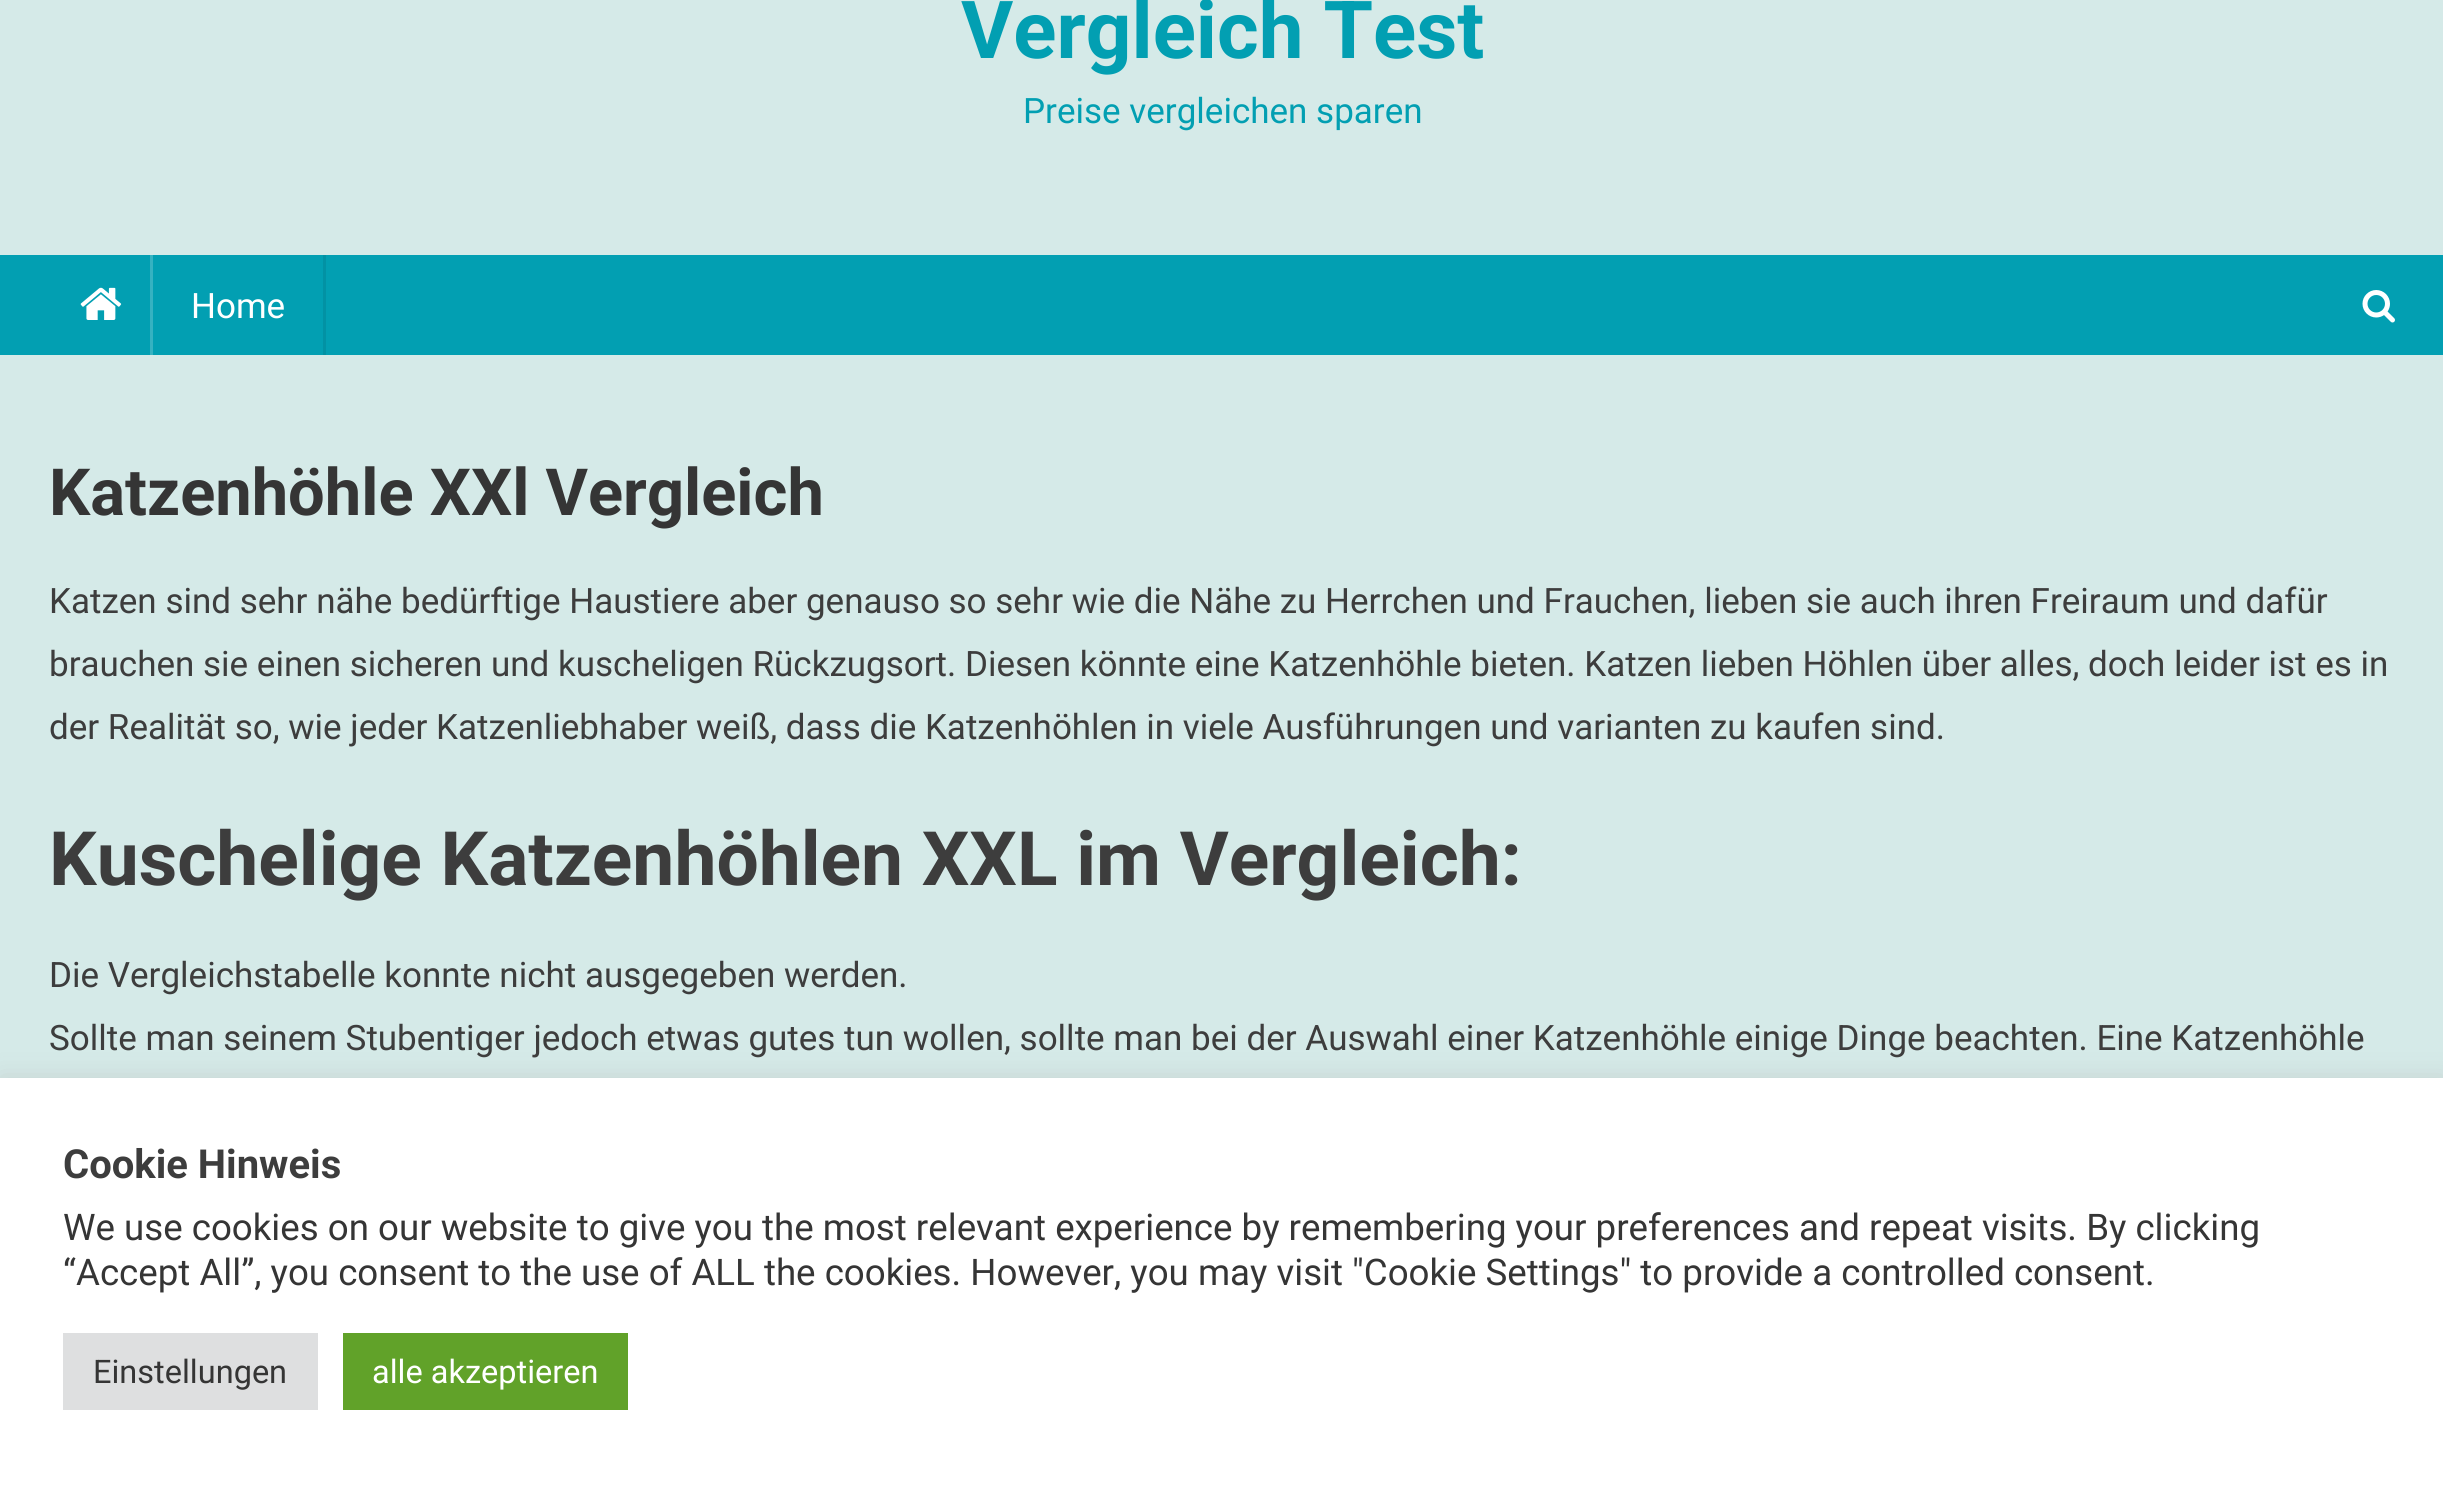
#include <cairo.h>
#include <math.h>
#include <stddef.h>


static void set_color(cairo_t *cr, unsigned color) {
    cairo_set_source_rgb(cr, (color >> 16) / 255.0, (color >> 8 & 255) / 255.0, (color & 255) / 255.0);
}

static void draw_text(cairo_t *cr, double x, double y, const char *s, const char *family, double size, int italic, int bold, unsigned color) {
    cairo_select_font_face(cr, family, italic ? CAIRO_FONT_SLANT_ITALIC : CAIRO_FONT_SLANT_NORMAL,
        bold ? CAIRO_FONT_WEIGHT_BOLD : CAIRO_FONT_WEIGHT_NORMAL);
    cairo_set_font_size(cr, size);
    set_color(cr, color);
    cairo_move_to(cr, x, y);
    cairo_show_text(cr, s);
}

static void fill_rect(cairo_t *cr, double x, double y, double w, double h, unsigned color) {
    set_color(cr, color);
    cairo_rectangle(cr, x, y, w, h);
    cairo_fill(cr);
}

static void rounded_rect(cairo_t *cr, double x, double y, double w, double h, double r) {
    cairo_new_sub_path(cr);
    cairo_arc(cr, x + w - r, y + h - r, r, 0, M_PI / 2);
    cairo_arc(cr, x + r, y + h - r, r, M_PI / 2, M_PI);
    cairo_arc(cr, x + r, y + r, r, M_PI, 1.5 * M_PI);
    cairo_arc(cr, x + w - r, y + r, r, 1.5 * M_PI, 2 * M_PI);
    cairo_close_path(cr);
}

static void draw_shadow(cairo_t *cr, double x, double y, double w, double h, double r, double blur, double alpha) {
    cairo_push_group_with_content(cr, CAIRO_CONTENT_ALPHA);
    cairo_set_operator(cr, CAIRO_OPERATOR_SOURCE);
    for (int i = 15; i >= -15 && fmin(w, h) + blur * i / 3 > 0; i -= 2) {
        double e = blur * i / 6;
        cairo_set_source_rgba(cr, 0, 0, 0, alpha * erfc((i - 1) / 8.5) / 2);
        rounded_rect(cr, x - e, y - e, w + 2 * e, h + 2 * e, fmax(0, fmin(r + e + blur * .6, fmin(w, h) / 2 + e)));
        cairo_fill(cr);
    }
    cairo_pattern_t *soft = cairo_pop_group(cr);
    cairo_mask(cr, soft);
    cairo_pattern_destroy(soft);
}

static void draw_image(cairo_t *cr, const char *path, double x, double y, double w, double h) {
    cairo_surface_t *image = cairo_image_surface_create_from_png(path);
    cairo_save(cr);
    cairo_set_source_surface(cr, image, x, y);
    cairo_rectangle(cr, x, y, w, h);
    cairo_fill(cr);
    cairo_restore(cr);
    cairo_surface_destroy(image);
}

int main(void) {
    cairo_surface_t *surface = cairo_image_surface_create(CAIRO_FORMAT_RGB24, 2443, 1485);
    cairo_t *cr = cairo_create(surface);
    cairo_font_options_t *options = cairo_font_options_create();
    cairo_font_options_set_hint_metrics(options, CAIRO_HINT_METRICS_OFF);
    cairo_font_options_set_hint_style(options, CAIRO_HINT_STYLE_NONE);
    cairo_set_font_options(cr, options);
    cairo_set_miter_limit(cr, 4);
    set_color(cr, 0xD5EAE8);
    cairo_paint(cr);
    draw_text(cr, 961, 58, "Vergleich Test", "Roboto", 80, 0, 1, 0x029FB2);
    draw_text(cr, 1023, 123, "Preise vergleichen sparen", "Roboto", 35, 0, 0, 0x029FB2);
    fill_rect(cr, 0, 255, 2443, 100, 0x029FB2);
    draw_image(cr, "assets/img1.png", 80, 287, 42, 33);
    fill_rect(cr, 323, 255, 3, 100, 0x0292A4);
    fill_rect(cr, 150, 255, 3, 100, 0x35B2C1);
    draw_text(cr, 191, 318, "Home", "Roboto", 35, 0, 0, 0xFFFFFF);
    draw_image(cr, "assets/img2.png", 2362, 290, 33, 33);
    draw_text(cr, 49, 515, "Katzenhöhle XXl Vergleich", "Roboto", 65, 0, 1, 0x353535);
    draw_text(cr, 49, 613, "Katzen sind sehr nähe bedürftige Haustiere aber genauso so sehr wie die Nähe zu Herrchen und Frauchen, lieben sie auch ihren Freiraum und dafür", "Roboto", 35, 0, 0, 0x3D3D3D);
    draw_text(cr, 49, 676, "brauchen sie einen sicheren und kuscheligen Rückzugsort. Diesen könnte eine Katzenhöhle bieten. Katzen lieben Höhlen über alles, doch leider ist es in", "Roboto", 35, 0, 0, 0x3D3D3D);
    draw_text(cr, 49, 739, "der Realität so, wie jeder Katzenliebhaber weiß, dass die Katzenhöhlen in viele Ausführungen und varianten zu kaufen sind.", "Roboto", 35, 0, 0, 0x3D3D3D);
    draw_text(cr, 49, 885, "Kuschelige Katzenhöhlen XXL im Vergleich:", "Roboto", 75, 0, 1, 0x3D3D3D);
    draw_text(cr, 49, 987, "Die Vergleichstabelle konnte nicht ausgegeben werden.", "Roboto", 35, 0, 0, 0x3D3D3D);
    draw_text(cr, 49, 1050, "Sollte man seinem Stubentiger jedoch etwas gutes tun wollen, sollte man bei der Auswahl einer Katzenhöhle einige Dinge beachten. Eine Katzenhöhle", "Roboto", 35, 0, 0, 0x3D3D3D);
    set_color(cr, 0xACABAB);
    draw_shadow(cr, 0, 1075, 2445, 408, 0, 12.5, 0.3);
    fill_rect(cr, 0, 1078, 2443, 407, 0xFFFFFF);
    draw_text(cr, 63, 1178, "Cookie Hinweis", "Roboto", 40, 0, 1, 0x3D3D3D);
    draw_text(cr, 63, 1240, "We use cookies on our website to give you the most relevant experience by remembering your preferences and repeat visits. By clicking", "Roboto", 36.67, 0, 0, 0x353535);
    draw_text(cr, 63, 1285, "“Accept All”, you consent to the use of ALL the cookies. However, you may visit \"Cookie Settings\" to provide a controlled consent.", "Roboto", 36.67, 0, 0, 0x353535);
    fill_rect(cr, 63, 1333, 255, 77, 0xDEDFE0);
    draw_text(cr, 93, 1383, "Einstellungen", "Roboto", 32.5, 0, 0, 0x353535);
    fill_rect(cr, 343, 1333, 285, 77, 0x61A229);
    draw_text(cr, 372, 1383, "alle akzeptieren", "Roboto", 32.5, 0, 0, 0xFFFFFF);
    cairo_surface_write_to_png(surface, "output.png");
    cairo_font_options_destroy(options);
    cairo_destroy(cr);
    cairo_surface_destroy(surface);
    return 0;
}
